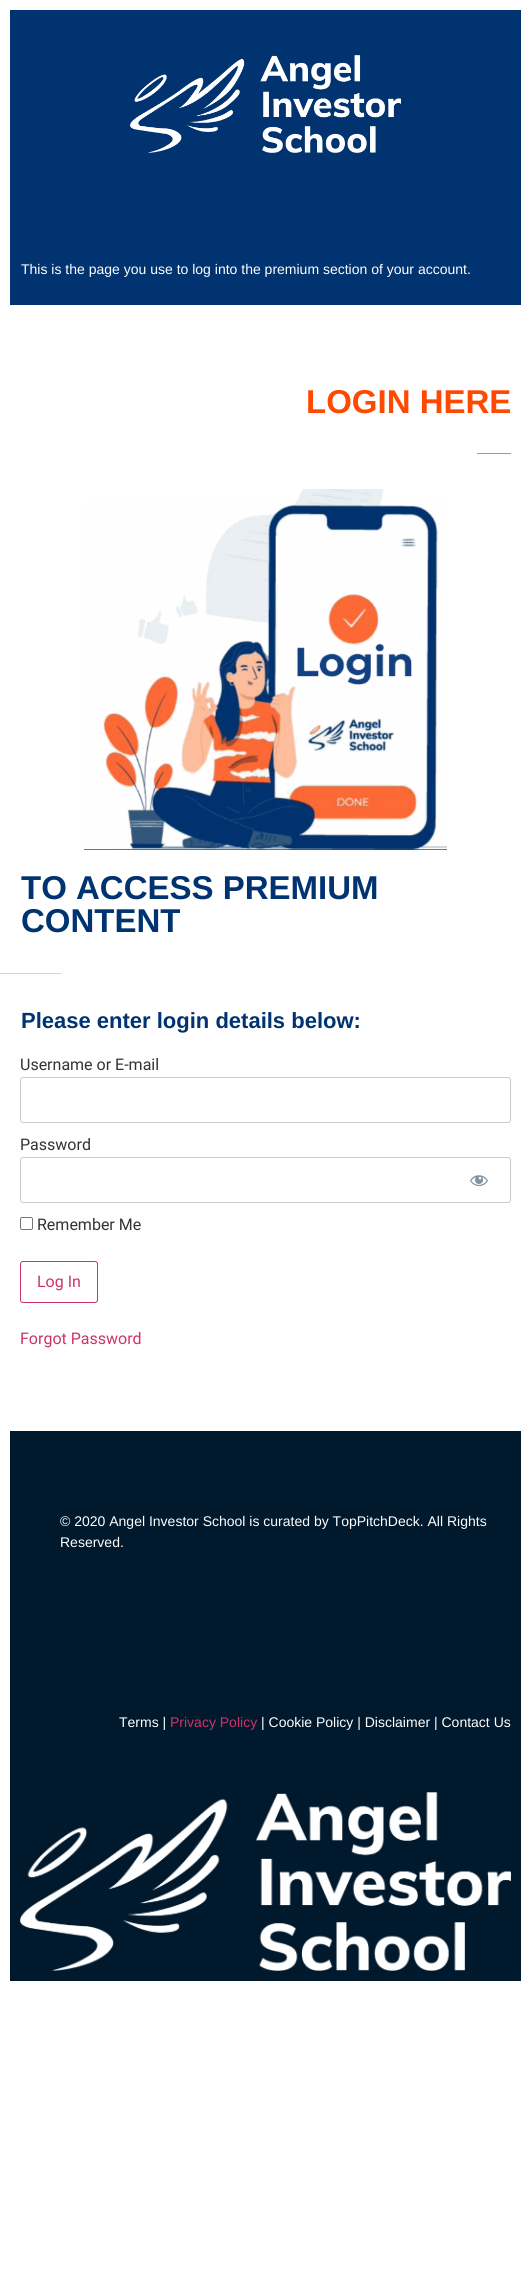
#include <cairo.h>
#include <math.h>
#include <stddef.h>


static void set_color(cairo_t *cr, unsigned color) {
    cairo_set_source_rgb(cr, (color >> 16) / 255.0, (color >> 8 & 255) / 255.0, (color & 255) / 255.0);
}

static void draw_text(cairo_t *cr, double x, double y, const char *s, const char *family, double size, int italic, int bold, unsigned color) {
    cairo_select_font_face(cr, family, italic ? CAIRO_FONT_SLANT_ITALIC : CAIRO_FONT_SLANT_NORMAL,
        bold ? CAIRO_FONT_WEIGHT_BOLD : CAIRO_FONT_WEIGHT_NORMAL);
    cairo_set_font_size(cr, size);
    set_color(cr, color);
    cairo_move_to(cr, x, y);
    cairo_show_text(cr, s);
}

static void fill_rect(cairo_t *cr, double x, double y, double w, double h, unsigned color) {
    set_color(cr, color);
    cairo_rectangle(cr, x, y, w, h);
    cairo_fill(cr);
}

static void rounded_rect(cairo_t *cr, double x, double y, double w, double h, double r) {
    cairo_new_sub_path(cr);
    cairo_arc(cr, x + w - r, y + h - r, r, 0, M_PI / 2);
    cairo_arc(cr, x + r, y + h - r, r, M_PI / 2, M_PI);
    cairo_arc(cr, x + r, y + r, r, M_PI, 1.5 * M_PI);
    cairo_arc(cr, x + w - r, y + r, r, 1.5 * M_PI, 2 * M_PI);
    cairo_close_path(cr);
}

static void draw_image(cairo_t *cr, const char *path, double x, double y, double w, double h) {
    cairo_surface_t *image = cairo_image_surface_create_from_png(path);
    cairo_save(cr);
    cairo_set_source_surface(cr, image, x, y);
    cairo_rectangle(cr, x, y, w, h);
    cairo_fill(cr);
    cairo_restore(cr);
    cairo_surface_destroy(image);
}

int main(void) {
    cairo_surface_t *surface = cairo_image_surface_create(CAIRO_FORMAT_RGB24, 531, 2292);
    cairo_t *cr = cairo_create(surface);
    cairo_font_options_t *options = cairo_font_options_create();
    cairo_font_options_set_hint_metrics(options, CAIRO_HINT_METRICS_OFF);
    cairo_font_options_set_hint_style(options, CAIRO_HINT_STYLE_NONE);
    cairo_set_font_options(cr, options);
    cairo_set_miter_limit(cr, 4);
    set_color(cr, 0xFFFFFF);
    cairo_paint(cr);
    fill_rect(cr, 10, 10, 511, 295, 0x003370);
    draw_image(cr, "assets/img1.png", 130, 55, 271, 98);
    draw_text(cr, 21, 274, "This is the page you use to log into the premium section of your account.", "Liberation Sans", 14, 0, 0, 0xFFFFFF);
    draw_text(cr, 306, 413, "LOGIN HERE", "Liberation Sans", 33, 0, 1, 0xFF4800);
    fill_rect(cr, 477, 453, 34, 1, 0xFF7A46);
    draw_image(cr, "assets/img2.png", 84, 489, 363, 361);
    draw_text(cr, 21, 899, "TO ACCESS PREMIUM", "Liberation Sans", 33, 0, 1, 0x003370);
    draw_text(cr, 21, 932, "CONTENT", "Liberation Sans", 33, 0, 1, 0x003370);
    fill_rect(cr, 0, 973, 61, 1, 0xD5D5D5);
    draw_text(cr, 21, 1028, "Please enter login details below:", "Liberation Sans", 22, 0, 1, 0x003370);
    draw_text(cr, 20, 1070, "Username or E-mail", "Roboto", 16, 0, 0, 0x333333);
    rounded_rect(cr, 20.5, 1077.5, 490, 45, 2.5);
    set_color(cr, 0xCCCCCC);
    cairo_set_line_width(cr, 1);
    cairo_stroke(cr);
    draw_text(cr, 20, 1150, "Password", "Roboto", 16, 0, 0, 0x333333);
    rounded_rect(cr, 20.5, 1157.5, 490, 45, 2.5);
    set_color(cr, 0xCCCCCC);
    cairo_stroke(cr);
    draw_image(cr, "assets/img3.png", 470, 1175, 18, 12);
    rounded_rect(cr, 20.5, 1217.5, 12, 12, 1.5);
    set_color(cr, 0x767676);
    cairo_stroke(cr);
    draw_text(cr, 37, 1230, "Remember Me", "Roboto", 16, 0, 0, 0x333333);
    rounded_rect(cr, 20.5, 1261.5, 77, 41, 2.5);
    set_color(cr, 0xCC3366);
    cairo_stroke(cr);
    draw_text(cr, 37, 1287, "Log In", "Roboto", 16, 0, 0, 0xCC3366);
    draw_text(cr, 20, 1344, "Forgot Password", "Roboto", 16, 0, 0, 0xCC3366);
    fill_rect(cr, 10, 1431, 511, 550, 0x00192D);
    draw_text(cr, 60, 1526, "© 2020 Angel Investor School is curated by TopPitchDeck. All Rights", "Liberation Sans", 14, 0, 0, 0xFFFFFF);
    draw_text(cr, 60, 1547, "Reserved.", "Liberation Sans", 14, 0, 0, 0xFFFFFF);
    draw_text(cr, 119, 1727, "Terms |", "Liberation Sans", 14, 0, 0, 0xFFFFFF);
    draw_text(cr, 170, 1727, "Privacy Policy", "Liberation Sans", 14, 0, 0, 0xCC3366);
    draw_text(cr, 261, 1727, "| Cookie Policy | Disclaimer | Contact Us", "Liberation Sans", 14, 0, 0, 0xFFFFFF);
    draw_image(cr, "assets/img4.png", 20, 1792, 491, 179);
    cairo_surface_write_to_png(surface, "output.png");
    cairo_font_options_destroy(options);
    cairo_destroy(cr);
    cairo_surface_destroy(surface);
    return 0;
}
